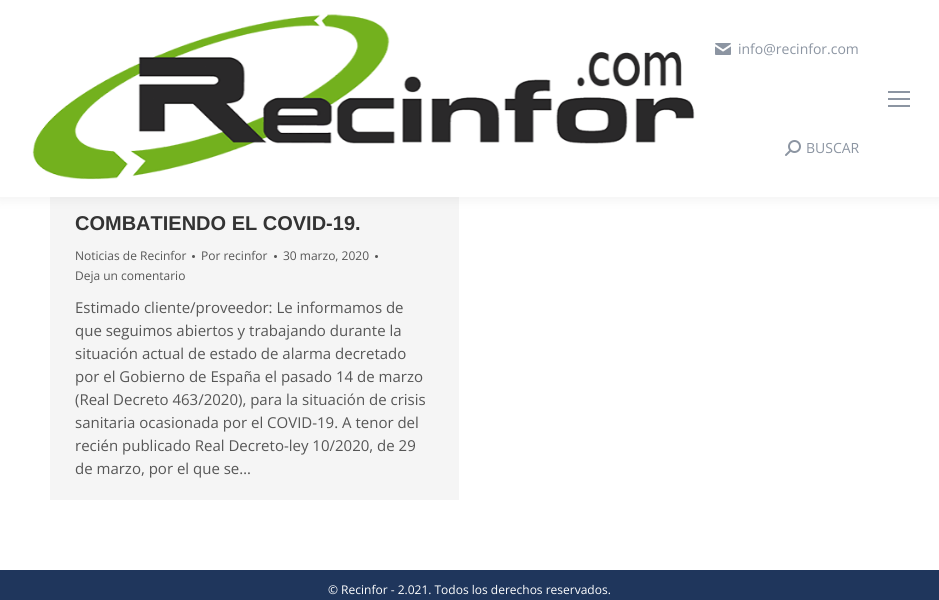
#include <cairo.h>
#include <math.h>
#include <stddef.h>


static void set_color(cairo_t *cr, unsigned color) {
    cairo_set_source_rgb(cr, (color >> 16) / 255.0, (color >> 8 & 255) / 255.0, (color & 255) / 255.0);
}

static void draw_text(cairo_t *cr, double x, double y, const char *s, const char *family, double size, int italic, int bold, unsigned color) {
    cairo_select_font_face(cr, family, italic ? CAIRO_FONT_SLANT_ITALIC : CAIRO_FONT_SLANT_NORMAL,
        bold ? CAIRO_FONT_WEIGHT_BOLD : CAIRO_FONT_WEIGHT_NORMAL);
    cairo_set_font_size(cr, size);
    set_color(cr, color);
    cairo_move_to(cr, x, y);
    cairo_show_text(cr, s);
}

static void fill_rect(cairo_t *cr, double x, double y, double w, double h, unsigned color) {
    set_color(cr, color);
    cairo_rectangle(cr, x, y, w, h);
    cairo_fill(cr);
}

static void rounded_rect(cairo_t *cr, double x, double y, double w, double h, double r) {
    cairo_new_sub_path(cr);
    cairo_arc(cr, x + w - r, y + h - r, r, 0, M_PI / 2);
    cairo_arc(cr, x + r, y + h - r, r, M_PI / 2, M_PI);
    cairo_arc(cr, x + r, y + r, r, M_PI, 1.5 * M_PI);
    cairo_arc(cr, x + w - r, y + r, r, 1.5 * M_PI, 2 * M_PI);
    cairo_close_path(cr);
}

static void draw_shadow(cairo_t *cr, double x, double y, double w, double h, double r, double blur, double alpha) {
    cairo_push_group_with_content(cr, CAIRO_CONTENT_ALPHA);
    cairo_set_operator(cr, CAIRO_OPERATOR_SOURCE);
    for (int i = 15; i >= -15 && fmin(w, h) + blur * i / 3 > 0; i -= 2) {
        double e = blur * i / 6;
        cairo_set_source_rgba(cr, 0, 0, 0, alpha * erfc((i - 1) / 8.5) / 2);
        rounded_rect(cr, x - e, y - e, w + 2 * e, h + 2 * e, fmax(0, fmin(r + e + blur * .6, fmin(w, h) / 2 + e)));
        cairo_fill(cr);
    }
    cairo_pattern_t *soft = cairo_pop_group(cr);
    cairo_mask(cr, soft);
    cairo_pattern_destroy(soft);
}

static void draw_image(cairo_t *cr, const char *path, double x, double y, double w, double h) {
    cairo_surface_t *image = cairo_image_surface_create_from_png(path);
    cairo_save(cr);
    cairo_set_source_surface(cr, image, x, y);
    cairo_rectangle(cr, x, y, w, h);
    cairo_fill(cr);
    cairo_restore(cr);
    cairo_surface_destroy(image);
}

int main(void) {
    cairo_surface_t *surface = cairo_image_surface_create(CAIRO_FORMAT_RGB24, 939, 600);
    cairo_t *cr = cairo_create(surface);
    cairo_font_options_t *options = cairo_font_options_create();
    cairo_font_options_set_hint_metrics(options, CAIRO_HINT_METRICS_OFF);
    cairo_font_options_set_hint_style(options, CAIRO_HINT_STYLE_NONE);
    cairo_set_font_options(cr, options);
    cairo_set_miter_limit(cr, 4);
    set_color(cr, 0xFFFFFF);
    cairo_paint(cr);
    fill_rect(cr, 50, 197, 409, 303, 0xF5F5F5);
    set_color(cr, 0x000000);
    draw_shadow(cr, -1, -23, 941, 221, 0, 7.5, 0.07);
    fill_rect(cr, 0, 0, 939, 197, 0xFFFFFF);
    draw_image(cr, "assets/img1.png", 32, 14, 663, 166);
    draw_image(cr, "assets/img2.png", 715, 43, 16, 12);
    draw_text(cr, 738, 54, "info@recinfor.com", "Open Sans", 14, 0, 0, 0x8C95A2);
    draw_image(cr, "assets/img3.png", 785, 140, 16, 16);
    draw_text(cr, 806, 153, "BUSCAR", "Open Sans", 14, 0, 0, 0x8C95A2);
    fill_rect(cr, 888, 91, 22, 2, 0x8C95A2);
    fill_rect(cr, 888, 98, 22, 2, 0x8C95A2);
    fill_rect(cr, 888, 105, 22, 2, 0x8C95A2);
    draw_text(cr, 75, 230, "COMBATIENDO EL COVID-19.", "Liberation Sans", 20, 0, 1, 0x333333);
    draw_text(cr, 75, 260, "Noticias de Recinfor", "Open Sans", 12, 0, 0, 0x565656);
    cairo_new_path(cr);
    cairo_arc(cr, 193.5, 256.5, 1.5, 0, 2 * M_PI);
    cairo_fill(cr);
    draw_text(cr, 201, 260, "Por recinfor", "Open Sans", 12, 0, 0, 0x565656);
    cairo_new_path(cr);
    cairo_arc(cr, 275.5, 256.5, 1.5, 0, 2 * M_PI);
    cairo_fill(cr);
    draw_text(cr, 283, 260, "30 marzo, 2020", "Open Sans", 12, 0, 0, 0x565656);
    cairo_new_path(cr);
    cairo_arc(cr, 376.5, 256.5, 1.5, 0, 2 * M_PI);
    cairo_fill(cr);
    draw_text(cr, 75, 280, "Deja un comentario", "Open Sans", 12, 0, 0, 0x565656);
    draw_text(cr, 75, 313, "Estimado cliente/proveedor: Le informamos de", "Open Sans", 15, 0, 0, 0x565656);
    draw_text(cr, 75, 336, "que seguimos abiertos y trabajando durante la", "Open Sans", 15, 0, 0, 0x565656);
    draw_text(cr, 75, 359, "situación actual de estado de alarma decretado", "Open Sans", 15, 0, 0, 0x565656);
    draw_text(cr, 75, 382, "por el Gobierno de España el pasado 14 de marzo", "Open Sans", 15, 0, 0, 0x565656);
    draw_text(cr, 75, 405, "(Real Decreto 463/2020), para la situación de crisis", "Open Sans", 15, 0, 0, 0x565656);
    draw_text(cr, 75, 428, "sanitaria ocasionada por el COVID-19. A tenor del", "Open Sans", 15, 0, 0, 0x565656);
    draw_text(cr, 75, 451, "recién publicado Real Decreto-ley 10/2020, de 29", "Open Sans", 15, 0, 0, 0x565656);
    draw_text(cr, 75, 474, "de marzo, por el que se…", "Open Sans", 15, 0, 0, 0x565656);
    fill_rect(cr, 0, 570, 939, 30, 0x1F365C);
    draw_text(cr, 328, 594, "© Recinfor - 2.021. Todos los derechos reservados.", "Open Sans", 12, 0, 0, 0xFFFFFF);
    cairo_surface_write_to_png(surface, "output.png");
    cairo_font_options_destroy(options);
    cairo_destroy(cr);
    cairo_surface_destroy(surface);
    return 0;
}
